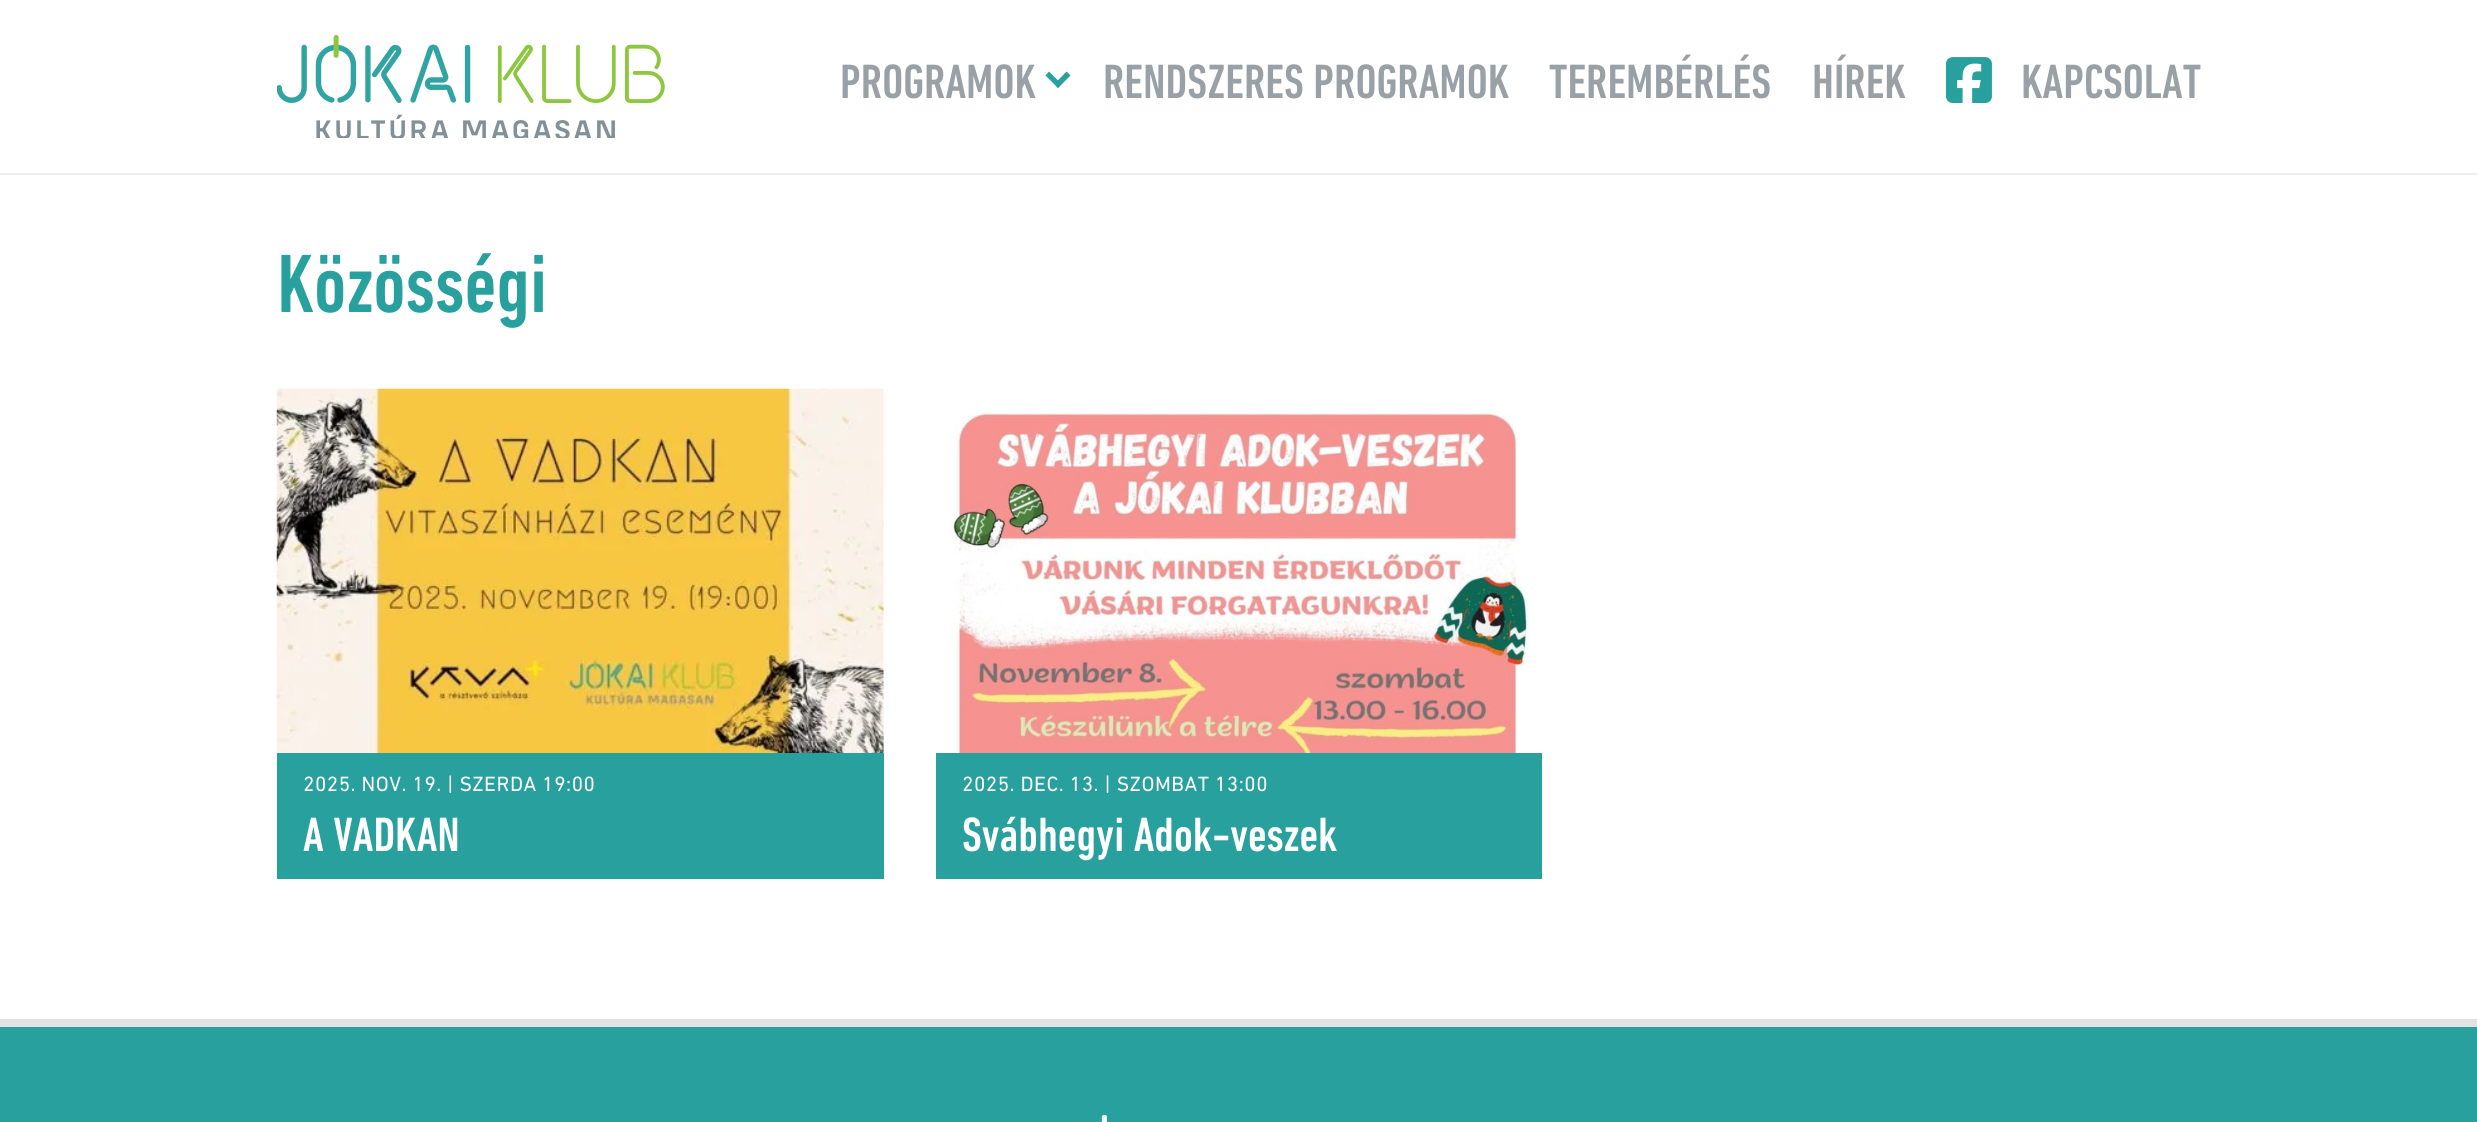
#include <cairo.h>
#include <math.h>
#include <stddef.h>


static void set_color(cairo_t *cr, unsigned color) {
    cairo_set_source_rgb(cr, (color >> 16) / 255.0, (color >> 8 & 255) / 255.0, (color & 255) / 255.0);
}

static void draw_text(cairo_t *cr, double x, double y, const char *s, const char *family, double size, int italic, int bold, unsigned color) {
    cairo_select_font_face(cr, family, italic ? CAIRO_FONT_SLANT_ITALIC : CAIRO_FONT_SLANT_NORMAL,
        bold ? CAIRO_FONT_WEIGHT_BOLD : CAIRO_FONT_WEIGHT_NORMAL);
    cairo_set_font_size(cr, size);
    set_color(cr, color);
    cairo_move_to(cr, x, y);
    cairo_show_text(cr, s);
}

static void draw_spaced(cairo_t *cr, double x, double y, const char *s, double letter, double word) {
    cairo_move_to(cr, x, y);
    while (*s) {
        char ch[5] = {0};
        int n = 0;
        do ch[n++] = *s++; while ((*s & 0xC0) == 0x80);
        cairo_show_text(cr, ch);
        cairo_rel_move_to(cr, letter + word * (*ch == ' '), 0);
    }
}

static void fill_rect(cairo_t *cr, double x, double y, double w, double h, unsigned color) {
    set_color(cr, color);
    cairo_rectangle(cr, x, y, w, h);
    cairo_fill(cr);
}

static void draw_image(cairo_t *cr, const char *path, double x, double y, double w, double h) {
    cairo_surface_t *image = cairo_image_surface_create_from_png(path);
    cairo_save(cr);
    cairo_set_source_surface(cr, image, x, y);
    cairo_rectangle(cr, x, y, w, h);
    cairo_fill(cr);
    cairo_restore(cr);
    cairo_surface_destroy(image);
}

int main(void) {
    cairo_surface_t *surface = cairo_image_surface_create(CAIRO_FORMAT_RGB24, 2477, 1122);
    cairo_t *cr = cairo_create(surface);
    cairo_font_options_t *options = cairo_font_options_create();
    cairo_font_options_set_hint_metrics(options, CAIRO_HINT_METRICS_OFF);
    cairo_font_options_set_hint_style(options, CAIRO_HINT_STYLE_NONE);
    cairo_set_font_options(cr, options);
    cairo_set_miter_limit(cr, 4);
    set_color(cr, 0xFFFFFF);
    cairo_paint(cr);
    fill_rect(cr, 0, 173, 2477, 2, 0xEEEEEE);
    draw_image(cr, "assets/img1.png", 277, 35, 388, 103);
    draw_text(cr, 840, 98, "PROGRAMOK", "DIN Next Medium", 49, 0, 0, 0x99A1A7);
    set_color(cr, 0x27A09E);
    cairo_new_path(cr);
    cairo_move_to(cr, 1049, 71.5);
    cairo_line_to(cr, 1061.5, 84);
    cairo_line_to(cr, 1058, 88);
    cairo_line_to(cr, 1045.5, 75.5);
    cairo_close_path(cr);
    cairo_fill(cr);
    cairo_new_path(cr);
    cairo_move_to(cr, 1054.5, 84);
    cairo_line_to(cr, 1066.5, 71.5);
    cairo_line_to(cr, 1070.5, 75.5);
    cairo_line_to(cr, 1058, 88);
    cairo_close_path(cr);
    cairo_fill(cr);
    draw_text(cr, 1103, 98, "RENDSZERES PROGRAMOK", "DIN Next Medium", 49, 0, 0, 0x99A1A7);
    draw_text(cr, 1549, 98, "TEREMBÉRLÉS", "DIN Next Medium", 49, 0, 0, 0x99A1A7);
    draw_text(cr, 1812, 98, "HÍREK", "DIN Next Medium", 49, 0, 0, 0x99A1A7);
    draw_image(cr, "assets/img2.png", 1946, 57, 46, 46);
    draw_text(cr, 2021, 98, "KAPCSOLAT", "DIN Next Medium", 49, 0, 0, 0x99A1A7);
    draw_text(cr, 277, 312, "Közösségi", "DIN Next Medium", 84, 0, 0, 0x27A09E);
    draw_image(cr, "assets/img3.png", 276, 388, 608, 368);
    fill_rect(cr, 277, 753, 607, 126, 0x27A09E);
    cairo_select_font_face(cr, "DIN Next", CAIRO_FONT_SLANT_NORMAL, CAIRO_FONT_WEIGHT_NORMAL);
    cairo_set_font_size(cr, 21);
    set_color(cr, 0xFFFFFF);
    draw_spaced(cr, 303, 791, "2025. NOV. 19. | SZERDA 19:00", 0.5, 0);
    draw_text(cr, 303, 851, "A VADKAN", "DIN Next Medium", 49, 0, 0, 0xFFFFFF);
    draw_image(cr, "assets/img4.png", 949, 413, 581, 340);
    fill_rect(cr, 936, 753, 606, 126, 0x27A09E);
    cairo_select_font_face(cr, "DIN Next", CAIRO_FONT_SLANT_NORMAL, CAIRO_FONT_WEIGHT_NORMAL);
    cairo_set_font_size(cr, 21);
    set_color(cr, 0xFFFFFF);
    draw_spaced(cr, 962, 791, "2025. DEC. 13. | SZOMBAT 13:00", 0.5, 0);
    draw_text(cr, 962, 851, "Svábhegyi Adok-veszek", "DIN Next Medium", 49, 0, 0, 0xFFFFFF);
    fill_rect(cr, 0, 1027, 2477, 95, 0x27A09E);
    fill_rect(cr, 0, 1019, 2477, 8, 0xE2E2E2);
    draw_image(cr, "assets/img5.png", 1101, 1115, 6, 7);
    cairo_surface_write_to_png(surface, "output.png");
    cairo_font_options_destroy(options);
    cairo_destroy(cr);
    cairo_surface_destroy(surface);
    return 0;
}
